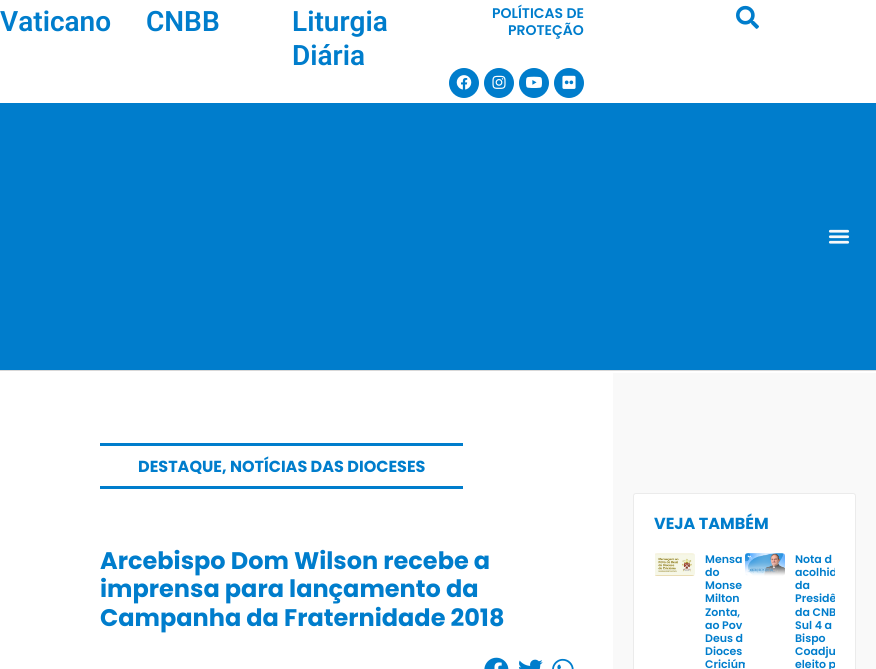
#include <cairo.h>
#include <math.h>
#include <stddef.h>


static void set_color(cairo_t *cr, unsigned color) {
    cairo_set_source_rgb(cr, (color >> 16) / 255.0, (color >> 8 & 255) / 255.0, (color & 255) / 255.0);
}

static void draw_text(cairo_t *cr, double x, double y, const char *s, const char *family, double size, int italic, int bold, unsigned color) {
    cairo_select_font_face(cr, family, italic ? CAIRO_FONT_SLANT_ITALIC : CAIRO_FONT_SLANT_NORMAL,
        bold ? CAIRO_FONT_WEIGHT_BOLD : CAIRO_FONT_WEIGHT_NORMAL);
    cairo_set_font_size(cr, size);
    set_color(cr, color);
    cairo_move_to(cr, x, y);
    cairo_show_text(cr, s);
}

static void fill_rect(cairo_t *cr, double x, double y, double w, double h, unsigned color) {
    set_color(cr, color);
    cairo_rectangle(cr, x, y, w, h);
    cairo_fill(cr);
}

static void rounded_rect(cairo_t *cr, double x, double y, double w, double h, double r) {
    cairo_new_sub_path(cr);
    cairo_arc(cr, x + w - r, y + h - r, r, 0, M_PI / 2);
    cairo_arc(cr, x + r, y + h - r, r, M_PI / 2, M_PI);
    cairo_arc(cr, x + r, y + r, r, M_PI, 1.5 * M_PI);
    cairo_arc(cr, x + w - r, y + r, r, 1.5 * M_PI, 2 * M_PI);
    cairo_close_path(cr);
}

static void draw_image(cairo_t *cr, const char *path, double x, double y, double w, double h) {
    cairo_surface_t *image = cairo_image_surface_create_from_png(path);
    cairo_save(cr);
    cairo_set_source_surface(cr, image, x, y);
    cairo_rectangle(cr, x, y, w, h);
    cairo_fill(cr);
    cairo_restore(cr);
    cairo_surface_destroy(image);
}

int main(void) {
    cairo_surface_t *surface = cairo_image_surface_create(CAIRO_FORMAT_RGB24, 876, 669);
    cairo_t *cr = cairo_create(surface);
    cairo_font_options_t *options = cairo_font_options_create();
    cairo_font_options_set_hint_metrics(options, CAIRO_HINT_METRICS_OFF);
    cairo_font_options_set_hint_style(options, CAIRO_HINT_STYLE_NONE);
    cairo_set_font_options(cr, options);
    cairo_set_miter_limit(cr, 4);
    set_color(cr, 0xFFFFFF);
    cairo_paint(cr);
    draw_text(cr, 0, 31, "Vaticano", "Roboto SemiBold", 28, 0, 0, 0x007DCC);
    draw_text(cr, 146, 31, "CNBB", "Roboto SemiBold", 28, 0, 0, 0x007DCC);
    draw_text(cr, 292, 31, "Liturgia", "Roboto SemiBold", 28, 0, 0, 0x007DCC);
    draw_text(cr, 292, 65, "Diária", "Roboto SemiBold", 28, 0, 0, 0x007DCC);
    draw_text(cr, 492, 18, "POLÍTICAS DE", "Poppins SemiBold", 14, 0, 0, 0x007DCC);
    draw_text(cr, 508, 35, "PROTEÇÃO", "Poppins SemiBold", 14, 0, 0, 0x007DCC);
    cairo_new_path(cr);
    cairo_arc(cr, 464, 83, 15, 0, 2 * M_PI);
    cairo_fill(cr);
    draw_image(cr, "assets/img1.png", 456, 75, 16, 15);
    cairo_arc(cr, 499, 83, 15, 0, 2 * M_PI);
    cairo_fill(cr);
    draw_image(cr, "assets/img2.png", 492, 75, 14, 14);
    cairo_arc(cr, 534, 83, 15, 0, 2 * M_PI);
    cairo_fill(cr);
    draw_image(cr, "assets/img3.png", 526, 76, 16, 12);
    cairo_arc(cr, 569, 83, 15, 0, 2 * M_PI);
    cairo_fill(cr);
    draw_image(cr, "assets/img4.png", 562, 75, 14, 14);
    draw_image(cr, "assets/img5.png", 736, 5, 23, 24);
    fill_rect(cr, 0, 103, 876, 267, 0x007DCC);
    fill_rect(cr, 0, 370, 876, 1, 0xD8D8D8);
    draw_image(cr, "assets/img6.png", 828, 229, 22, 15);
    fill_rect(cr, 100, 443, 363, 3, 0x007DCC);
    fill_rect(cr, 100, 486, 363, 3, 0x007DCC);
    draw_text(cr, 138, 472, "DESTAQUE, NOTÍCIAS DAS DIOCESES", "Poppins", 16, 0, 1, 0x007DCC);
    draw_text(cr, 100, 569, "Arcebispo Dom Wilson recebe a", "Poppins", 24, 0, 1, 0x007DCC);
    draw_text(cr, 100, 597, "imprensa para lançamento da", "Poppins", 24, 0, 1, 0x007DCC);
    draw_text(cr, 100, 626, "Campanha da Fraternidade 2018", "Poppins", 24, 0, 1, 0x007DCC);
    draw_image(cr, "assets/img7.png", 484, 657, 25, 12);
    draw_image(cr, "assets/img8.png", 519, 659, 24, 10);
    draw_image(cr, "assets/img9.png", 552, 658, 22, 11);
    fill_rect(cr, 613, 373, 263, 296, 0xF9F9F9);
    set_color(cr, 0xFFFFFF);
    rounded_rect(cr, 633.5, 493.5, 222, 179, 2.5);
    cairo_fill_preserve(cr);
    set_color(cr, 0xEBEBEB);
    cairo_set_line_width(cr, 1);
    cairo_stroke(cr);
    draw_text(cr, 654, 529, "VEJA TAMBÉM", "Poppins", 16, 0, 1, 0x007DCC);
    draw_image(cr, "assets/img10.png", 655, 553, 40, 23);
    draw_text(cr, 705, 563, "Mensa", "Poppins SemiBold", 11, 0, 0, 0x007DCC);
    draw_text(cr, 705, 576, "do", "Poppins SemiBold", 11, 0, 0, 0x007DCC);
    draw_text(cr, 705, 589, "Monse", "Poppins SemiBold", 11, 0, 0, 0x007DCC);
    draw_text(cr, 705, 602, "Milton", "Poppins SemiBold", 11, 0, 0, 0x007DCC);
    draw_text(cr, 705, 616, "Zonta,", "Poppins SemiBold", 11, 0, 0, 0x007DCC);
    draw_text(cr, 705, 629, "ao Pov", "Poppins SemiBold", 11, 0, 0, 0x007DCC);
    draw_text(cr, 705, 642, "Deus d", "Poppins SemiBold", 11, 0, 0, 0x007DCC);
    draw_text(cr, 705, 655, "Dioces", "Poppins SemiBold", 11, 0, 0, 0x007DCC);
    cairo_save(cr);
    cairo_rectangle(cr, 654, 553, 91, 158);
    cairo_clip(cr);
    draw_text(cr, 705, 668, "Criciúm", "Poppins SemiBold", 11, 0, 0, 0x007DCC);
    cairo_restore(cr);
    draw_image(cr, "assets/img11.png", 745, 553, 40, 23);
    draw_text(cr, 795, 563, "Nota d", "Poppins SemiBold", 11, 0, 0, 0x007DCC);
    cairo_save(cr);
    cairo_rectangle(cr, 745, 553, 90, 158);
    cairo_clip(cr);
    draw_text(cr, 795, 576, "acolhid", "Poppins SemiBold", 11, 0, 0, 0x007DCC);
    cairo_restore(cr);
    draw_text(cr, 795, 589, "da", "Poppins SemiBold", 11, 0, 0, 0x007DCC);
    cairo_save(cr);
    cairo_rectangle(cr, 745, 553, 90, 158);
    cairo_clip(cr);
    draw_text(cr, 795, 602, "Presidê", "Poppins SemiBold", 11, 0, 0, 0x007DCC);
    draw_text(cr, 795, 616, "da CNB", "Poppins SemiBold", 11, 0, 0, 0x007DCC);
    cairo_restore(cr);
    draw_text(cr, 795, 629, "Sul 4 a", "Poppins SemiBold", 11, 0, 0, 0x007DCC);
    draw_text(cr, 795, 642, "Bispo", "Poppins SemiBold", 11, 0, 0, 0x007DCC);
    cairo_save(cr);
    cairo_rectangle(cr, 745, 553, 90, 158);
    cairo_clip(cr);
    draw_text(cr, 795, 655, "Coadju", "Poppins SemiBold", 11, 0, 0, 0x007DCC);
    draw_text(cr, 795, 668, "eleito p", "Poppins SemiBold", 11, 0, 0, 0x007DCC);
    cairo_restore(cr);
    cairo_surface_write_to_png(surface, "output.png");
    cairo_font_options_destroy(options);
    cairo_destroy(cr);
    cairo_surface_destroy(surface);
    return 0;
}
